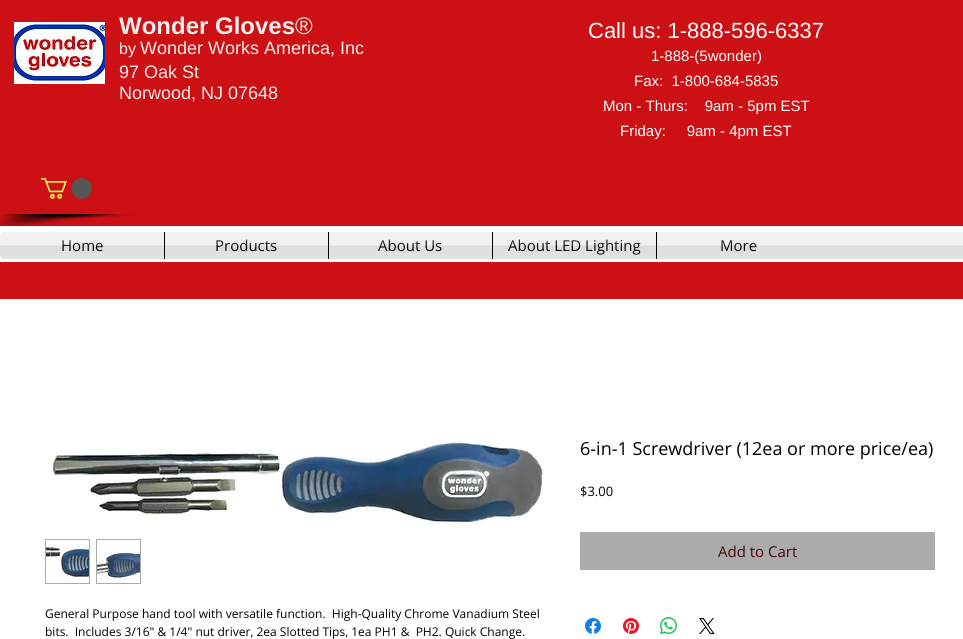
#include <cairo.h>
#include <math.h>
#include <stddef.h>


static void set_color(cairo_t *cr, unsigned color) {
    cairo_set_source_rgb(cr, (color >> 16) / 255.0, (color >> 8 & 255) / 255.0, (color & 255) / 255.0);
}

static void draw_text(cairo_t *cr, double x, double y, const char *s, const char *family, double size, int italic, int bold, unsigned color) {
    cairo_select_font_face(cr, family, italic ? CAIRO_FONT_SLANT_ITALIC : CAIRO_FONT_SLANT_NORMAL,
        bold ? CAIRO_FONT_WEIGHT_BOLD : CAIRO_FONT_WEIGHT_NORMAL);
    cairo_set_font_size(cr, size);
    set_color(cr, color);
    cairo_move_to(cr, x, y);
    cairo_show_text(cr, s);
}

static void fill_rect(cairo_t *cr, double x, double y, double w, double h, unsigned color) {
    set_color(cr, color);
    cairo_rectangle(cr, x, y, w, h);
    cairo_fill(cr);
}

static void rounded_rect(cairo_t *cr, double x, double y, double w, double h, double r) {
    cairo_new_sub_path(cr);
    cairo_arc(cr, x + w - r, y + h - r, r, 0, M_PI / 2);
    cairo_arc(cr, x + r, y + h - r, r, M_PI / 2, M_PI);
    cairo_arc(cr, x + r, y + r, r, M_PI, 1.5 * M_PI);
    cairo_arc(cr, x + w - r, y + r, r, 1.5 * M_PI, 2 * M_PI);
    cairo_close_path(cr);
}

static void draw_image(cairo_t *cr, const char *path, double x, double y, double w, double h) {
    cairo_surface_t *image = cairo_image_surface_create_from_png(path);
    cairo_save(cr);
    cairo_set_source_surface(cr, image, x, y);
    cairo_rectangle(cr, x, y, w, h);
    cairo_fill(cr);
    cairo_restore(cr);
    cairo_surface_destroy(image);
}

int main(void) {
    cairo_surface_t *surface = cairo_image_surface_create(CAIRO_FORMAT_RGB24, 963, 639);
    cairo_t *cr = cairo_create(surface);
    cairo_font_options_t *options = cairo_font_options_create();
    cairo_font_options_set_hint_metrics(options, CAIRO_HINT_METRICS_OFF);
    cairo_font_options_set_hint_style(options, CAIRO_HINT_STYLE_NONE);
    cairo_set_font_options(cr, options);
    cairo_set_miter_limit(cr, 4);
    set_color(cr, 0xCC1013);
    cairo_paint(cr);
    draw_image(cr, "assets/img1.png", 14, 22, 91, 62);
    draw_text(cr, 119, 34, "Wonder Gloves", "Liberation Sans", 24, 0, 1, 0xEDEDED);
    draw_text(cr, 295, 34, "®", "Liberation Sans", 24, 0, 0, 0xEDEDED);
    draw_text(cr, 119, 54, "by", "Liberation Sans", 16, 0, 0, 0xEDEDED);
    draw_text(cr, 140, 54, "Wonder Works America, Inc", "Liberation Sans", 18, 0, 0, 0xEDEDED);
    draw_text(cr, 119, 78, "97 Oak St", "Liberation Sans", 18, 0, 0, 0xEDEDED);
    draw_text(cr, 119, 99, "Norwood, NJ 07648", "Liberation Sans", 18, 0, 0, 0xEDEDED);
    draw_text(cr, 588, 38, "Call us: 1-888-596-6337", "Liberation Sans", 22, 0, 0, 0xFFFFFF);
    draw_text(cr, 651, 61, "1-888-(5wonder)", "Liberation Sans", 15, 0, 0, 0xFFFFFF);
    draw_text(cr, 634, 86, "Fax:  1-800-684-5835", "Liberation Sans", 15, 0, 0, 0xFFFFFF);
    draw_text(cr, 603, 111, "Mon - Thurs:    9am - 5pm EST", "Liberation Sans", 15, 0, 0, 0xFFFFFF);
    draw_text(cr, 620, 136, "Friday:     9am - 4pm EST", "Liberation Sans", 15, 0, 0, 0xFFFFFF);
    draw_image(cr, "assets/img2.png", 41, 178, 51, 21);
    draw_image(cr, "assets/img3.png", 0, 214, 145, 12);
    fill_rect(cr, 0, 226, 963, 36, 0xFFFFFF);
    set_color(cr, 0xEDEDED);
    rounded_rect(cr, 0, 232, 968, 27, 5);
    cairo_fill(cr);
    draw_image(cr, "assets/img4.png", 0, 232, 963, 27);
    cairo_new_path(cr);
    cairo_move_to(cr, 5, 232);
    cairo_line_to(cr, 164, 232);
    cairo_line_to(cr, 164, 259);
    cairo_line_to(cr, 5, 259);
    cairo_curve_to(cr, 2, 259, 0, 257, 0, 254);
    cairo_line_to(cr, 0, 237);
    cairo_curve_to(cr, 0, 234, 2, 232, 5, 232);
    cairo_close_path(cr);
    cairo_fill(cr);
    draw_text(cr, 61, 251, "Home", "Open Sans", 15, 0, 0, 0x000000);
    draw_image(cr, "assets/img5.png", 0, 232, 164, 27);
    fill_rect(cr, 165, 232, 163, 27, 0xEDEDED);
    fill_rect(cr, 164, 232, 1, 27, 0x000000);
    draw_text(cr, 215, 251, "Products", "Open Sans", 15, 0, 0, 0x000000);
    draw_image(cr, "assets/img6.png", 165, 232, 163, 27);
    fill_rect(cr, 329, 232, 163, 27, 0xEDEDED);
    fill_rect(cr, 328, 232, 1, 27, 0x000000);
    draw_text(cr, 378, 251, "About Us", "Open Sans", 15, 0, 0, 0x000000);
    draw_image(cr, "assets/img7.png", 329, 232, 163, 27);
    fill_rect(cr, 493, 232, 163, 27, 0xEDEDED);
    fill_rect(cr, 492, 232, 1, 27, 0x000000);
    draw_text(cr, 508, 251, "About LED Lighting", "Open Sans", 15, 0, 0, 0x000000);
    draw_image(cr, "assets/img8.png", 493, 232, 163, 27);
    fill_rect(cr, 657, 232, 163, 27, 0xEDEDED);
    fill_rect(cr, 656, 232, 1, 27, 0x000000);
    draw_text(cr, 720, 251, "More", "Open Sans", 15, 0, 0, 0x000000);
    draw_image(cr, "assets/img9.png", 657, 232, 163, 27);
    fill_rect(cr, 0, 299, 963, 340, 0xFFFFFF);
    draw_text(cr, 580, 455, "6-in-1 Screwdriver (12ea or more price/ea)", "Open Sans", 18, 0, 0, 0x000000);
    draw_text(cr, 580, 496, "$3.00", "Open Sans", 13, 0, 0, 0x000000);
    fill_rect(cr, 580, 532, 355, 38, 0xABABAB);
    draw_text(cr, 718, 557, "Add to Cart", "Open Sans", 15, 0, 0, 0x440506);
    draw_image(cr, "assets/img10.png", 585, 618, 16, 16);
    draw_image(cr, "assets/img11.png", 623, 618, 16, 16);
    draw_image(cr, "assets/img12.png", 660, 617, 17, 17);
    draw_image(cr, "assets/img13.png", 699, 618, 16, 16);
    draw_image(cr, "assets/img14.png", 51, 439, 495, 86);
    fill_rect(cr, 45, 539, 45, 45, 0xABABAB);
    draw_image(cr, "assets/img15.png", 46, 540, 43, 43);
    fill_rect(cr, 96, 539, 45, 45, 0xABABAB);
    draw_image(cr, "assets/img16.png", 97, 540, 43, 43);
    draw_text(cr, 45, 618, "General Purpose hand tool with versatile function.  High-Quality Chrome Vanadium Steel", "Open Sans", 12, 0, 0, 0x000000);
    draw_text(cr, 45, 636, "bits.  Includes 3/16\" & 1/4\" nut driver, 2ea Slotted Tips, 1ea PH1 &  PH2. Quick Change.", "Open Sans", 12, 0, 0, 0x000000);
    cairo_surface_write_to_png(surface, "output.png");
    cairo_font_options_destroy(options);
    cairo_destroy(cr);
    cairo_surface_destroy(surface);
    return 0;
}
